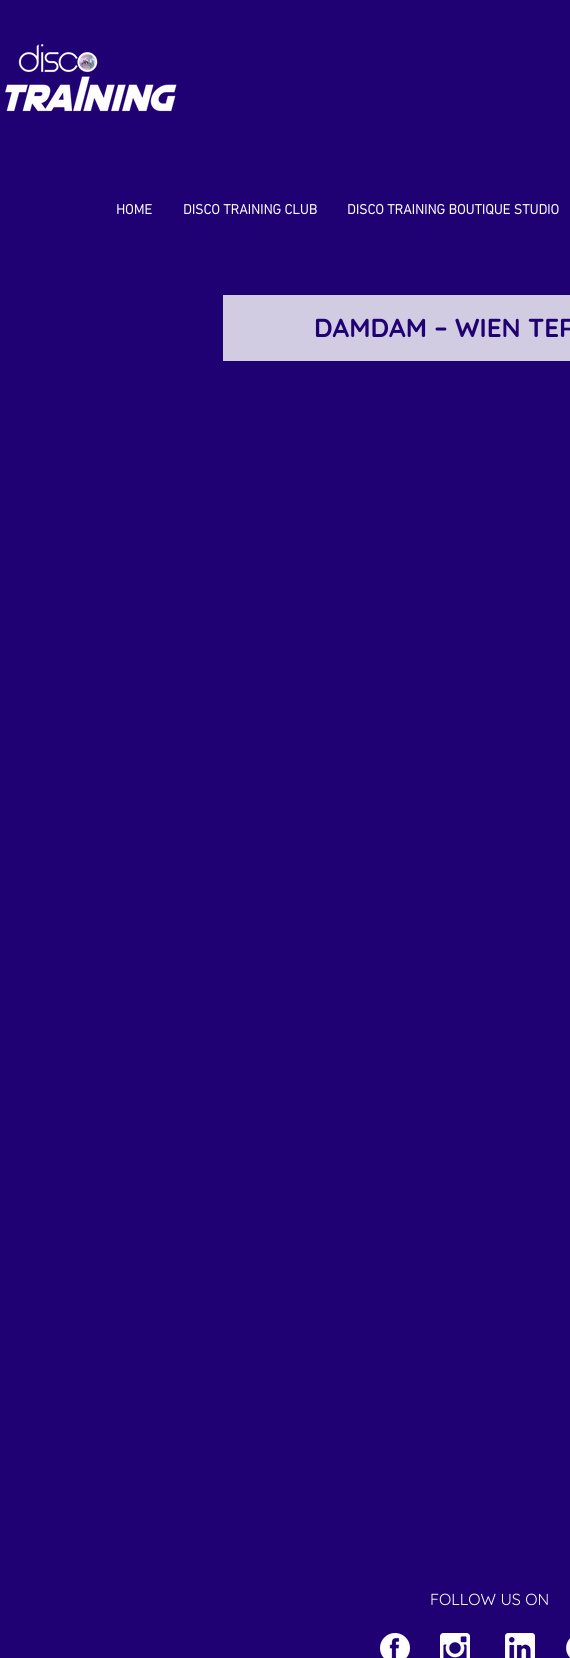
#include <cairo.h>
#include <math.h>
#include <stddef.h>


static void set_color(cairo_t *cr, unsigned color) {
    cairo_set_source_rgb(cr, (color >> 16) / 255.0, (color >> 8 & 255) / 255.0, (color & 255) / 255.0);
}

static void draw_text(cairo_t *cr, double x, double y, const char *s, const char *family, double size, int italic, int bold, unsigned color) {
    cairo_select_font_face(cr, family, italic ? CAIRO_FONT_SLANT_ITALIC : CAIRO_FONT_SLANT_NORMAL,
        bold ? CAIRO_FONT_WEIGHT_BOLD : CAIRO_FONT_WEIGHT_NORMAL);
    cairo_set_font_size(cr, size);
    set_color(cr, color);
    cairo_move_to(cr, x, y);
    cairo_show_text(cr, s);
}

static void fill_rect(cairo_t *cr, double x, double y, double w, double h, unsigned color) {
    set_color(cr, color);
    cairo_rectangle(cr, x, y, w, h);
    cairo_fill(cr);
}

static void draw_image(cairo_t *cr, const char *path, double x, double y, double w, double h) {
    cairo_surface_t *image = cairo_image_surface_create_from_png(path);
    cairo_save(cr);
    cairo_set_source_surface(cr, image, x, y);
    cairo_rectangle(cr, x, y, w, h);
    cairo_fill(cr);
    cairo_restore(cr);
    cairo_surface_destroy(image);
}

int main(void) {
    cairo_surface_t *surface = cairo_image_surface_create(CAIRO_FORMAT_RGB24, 570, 1658);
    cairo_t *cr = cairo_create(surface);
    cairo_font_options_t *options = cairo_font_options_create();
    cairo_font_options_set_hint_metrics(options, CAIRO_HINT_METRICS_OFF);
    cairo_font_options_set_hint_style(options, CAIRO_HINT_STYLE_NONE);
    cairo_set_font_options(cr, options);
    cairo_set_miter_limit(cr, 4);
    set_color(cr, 0x200174);
    cairo_paint(cr);
    draw_image(cr, "assets/img2.png", 77, 52, 19, 19);
    draw_image(cr, "assets/img1.png", 5, 44, 172, 68);
    draw_text(cr, 116, 214, "HOME", "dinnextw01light", 14, 0, 1, 0xFFFFFF);
    draw_text(cr, 183, 214, "DISCO TRAINING CLUB", "dinnextw01light", 14, 0, 1, 0xFFFFFF);
    draw_text(cr, 347, 214, "DISCO TRAINING BOUTIQUE STUDIO", "dinnextw01light", 14, 0, 1, 0xFFFFFF);
    fill_rect(cr, 223, 295, 347, 66, 0xD2CCE3);
    draw_text(cr, 314, 337, "DAMDAM – WIEN TER", "Quicksand", 26, 0, 1, 0x200174);
    draw_text(cr, 430, 1605, "FOLLOW US ON", "Quicksand", 16, 0, 0, 0xFFFFFF);
    draw_image(cr, "assets/img3.png", 380, 1633, 30, 25);
    draw_image(cr, "assets/img4.png", 440, 1633, 30, 25);
    draw_image(cr, "assets/img5.png", 505, 1633, 30, 25);
    draw_image(cr, "assets/img6.png", 566, 1638, 4, 20);
    cairo_surface_write_to_png(surface, "output.png");
    cairo_font_options_destroy(options);
    cairo_destroy(cr);
    cairo_surface_destroy(surface);
    return 0;
}
